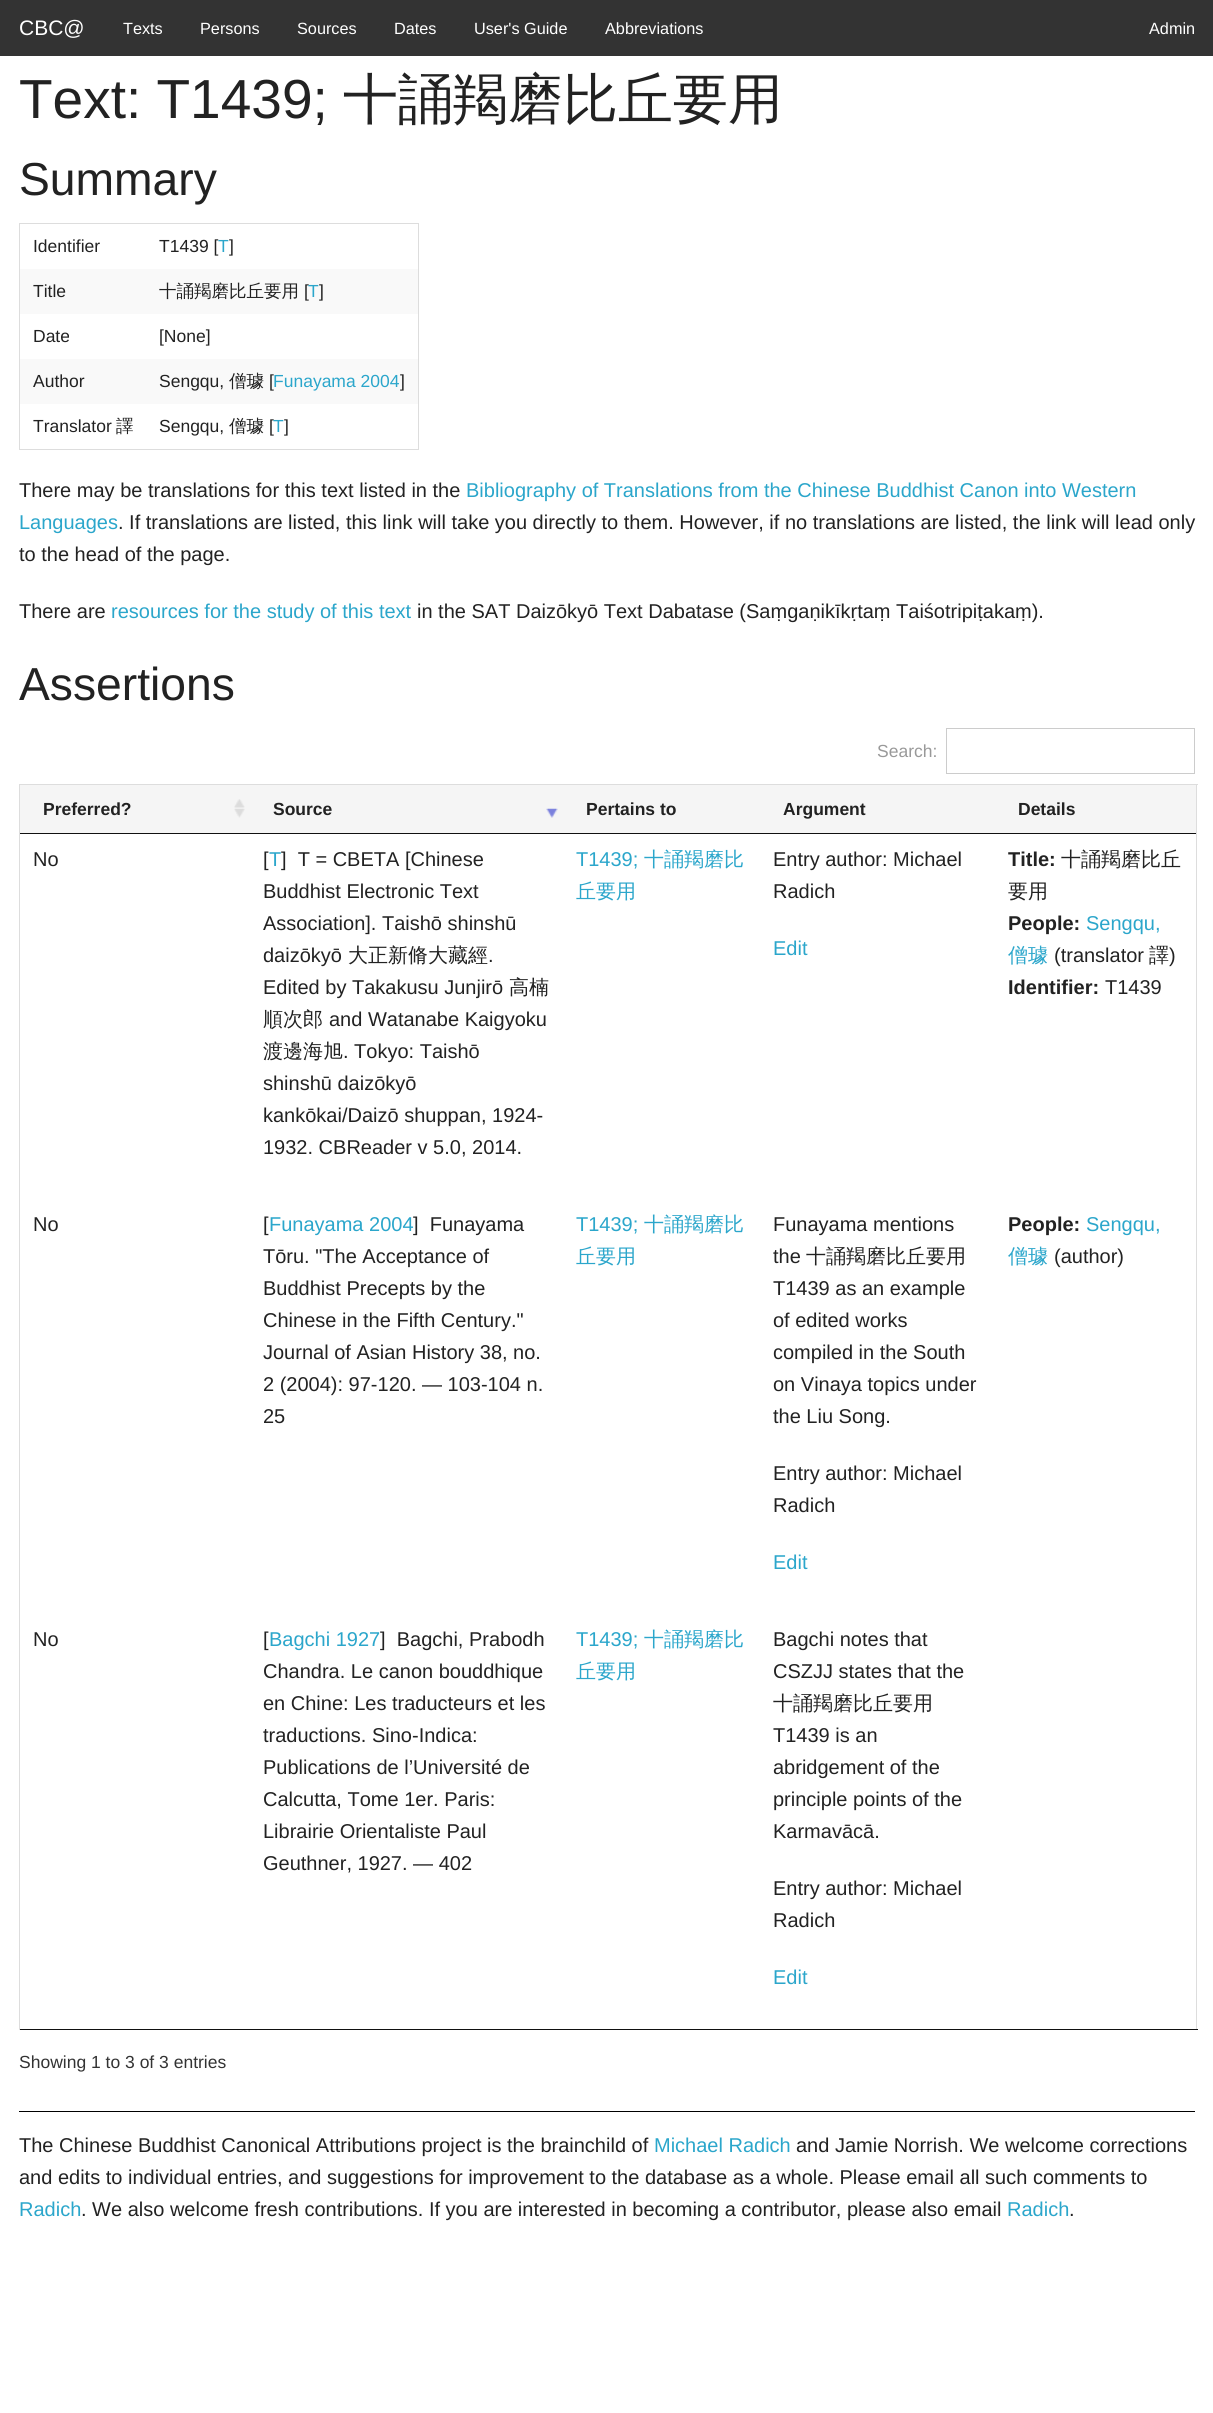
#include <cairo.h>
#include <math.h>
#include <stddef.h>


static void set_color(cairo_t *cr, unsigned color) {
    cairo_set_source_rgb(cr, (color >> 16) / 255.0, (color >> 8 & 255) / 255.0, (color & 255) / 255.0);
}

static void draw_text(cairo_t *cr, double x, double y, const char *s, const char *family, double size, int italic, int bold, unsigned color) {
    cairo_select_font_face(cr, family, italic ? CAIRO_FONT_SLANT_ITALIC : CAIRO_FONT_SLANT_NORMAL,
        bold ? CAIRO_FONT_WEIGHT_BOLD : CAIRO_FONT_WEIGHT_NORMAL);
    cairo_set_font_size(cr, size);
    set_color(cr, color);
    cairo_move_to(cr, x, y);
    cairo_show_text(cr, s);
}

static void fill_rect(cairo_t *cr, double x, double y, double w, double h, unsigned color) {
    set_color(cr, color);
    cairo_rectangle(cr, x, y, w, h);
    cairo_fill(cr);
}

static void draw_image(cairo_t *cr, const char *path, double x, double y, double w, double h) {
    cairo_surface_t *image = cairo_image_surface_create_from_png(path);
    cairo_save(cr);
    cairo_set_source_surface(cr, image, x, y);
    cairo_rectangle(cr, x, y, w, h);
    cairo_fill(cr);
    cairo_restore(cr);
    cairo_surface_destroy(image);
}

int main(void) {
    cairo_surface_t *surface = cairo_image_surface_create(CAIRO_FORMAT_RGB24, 1213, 2413);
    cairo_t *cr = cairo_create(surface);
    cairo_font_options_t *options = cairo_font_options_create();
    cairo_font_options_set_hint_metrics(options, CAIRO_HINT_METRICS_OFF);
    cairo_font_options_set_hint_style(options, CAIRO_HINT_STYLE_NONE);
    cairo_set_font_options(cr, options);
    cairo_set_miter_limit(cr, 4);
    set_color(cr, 0xFFFFFF);
    cairo_paint(cr);
    fill_rect(cr, 0, 0, 1213, 56, 0x333333);
    draw_text(cr, 19, 35, "CBC@", "Liberation Sans", 21, 0, 0, 0xFFFFFF);
    draw_text(cr, 123, 34, "Texts", "Liberation Sans", 16.25, 0, 0, 0xFFFFFF);
    draw_text(cr, 200, 34, "Persons", "Liberation Sans", 16.25, 0, 0, 0xFFFFFF);
    draw_text(cr, 297, 34, "Sources", "Liberation Sans", 16.25, 0, 0, 0xFFFFFF);
    draw_text(cr, 394, 34, "Dates", "Liberation Sans", 16.25, 0, 0, 0xFFFFFF);
    draw_text(cr, 474, 34, "User's Guide", "Liberation Sans", 16.25, 0, 0, 0xFFFFFF);
    draw_text(cr, 605, 34, "Abbreviations", "Liberation Sans", 16.25, 0, 0, 0xFFFFFF);
    draw_text(cr, 1149, 34, "Admin", "Liberation Sans", 16.25, 0, 0, 0xFFFFFF);
    draw_text(cr, 19, 118, "Text: T1439;", "Liberation Sans", 55, 0, 0, 0x222222);
    draw_text(cr, 343, 118, "十誦羯磨比丘要用", "WenQuanYi Zen Hei Medium", 55, 0, 0, 0x222222);
    draw_text(cr, 19, 195, "Summary", "Liberation Sans", 46.25, 0, 0, 0x222222);
    fill_rect(cr, 19, 223, 400, 1, 0xDDDDDD);
    fill_rect(cr, 418, 223, 1, 227, 0xDDDDDD);
    fill_rect(cr, 19, 449, 400, 1, 0xDDDDDD);
    fill_rect(cr, 19, 223, 1, 227, 0xDDDDDD);
    draw_text(cr, 33, 252, "Identifier", "Liberation Sans", 17.5, 0, 0, 0x222222);
    draw_text(cr, 159, 252, "T1439 [", "Liberation Sans", 17.5, 0, 0, 0x222222);
    draw_text(cr, 218, 252, "T", "Liberation Sans", 17.5, 0, 0, 0x2BA6CB);
    draw_text(cr, 229, 252, "]", "Liberation Sans", 17.5, 0, 0, 0x222222);
    fill_rect(cr, 20, 269, 398, 45, 0xF9F9F9);
    draw_text(cr, 33, 297, "Title", "Liberation Sans", 17.5, 0, 0, 0x222222);
    draw_text(cr, 159, 297, "十誦羯磨比丘要用", "WenQuanYi Zen Hei Medium", 17.5, 0, 0, 0x222222);
    draw_text(cr, 304, 297, "[", "Liberation Sans", 17.5, 0, 0, 0x222222);
    draw_text(cr, 308, 297, "T", "Liberation Sans", 17.5, 0, 0, 0x2BA6CB);
    draw_text(cr, 319, 297, "]", "Liberation Sans", 17.5, 0, 0, 0x222222);
    draw_text(cr, 33, 342, "Date", "Liberation Sans", 17.5, 0, 0, 0x222222);
    draw_text(cr, 159, 342, "[None]", "Liberation Sans", 17.5, 0, 0, 0x222222);
    fill_rect(cr, 20, 359, 398, 45, 0xF9F9F9);
    draw_text(cr, 33, 387, "Author", "Liberation Sans", 17.5, 0, 0, 0x222222);
    draw_text(cr, 159, 387, "Sengqu,", "Liberation Sans", 17.5, 0, 0, 0x222222);
    draw_text(cr, 229, 387, "僧璩", "WenQuanYi Zen Hei Medium", 17.5, 0, 0, 0x222222);
    draw_text(cr, 269, 387, "[", "Liberation Sans", 17.5, 0, 0, 0x222222);
    draw_text(cr, 273, 387, "Funayama 2004", "Liberation Sans", 17.5, 0, 0, 0x2BA6CB);
    draw_text(cr, 400, 387, "]", "Liberation Sans", 17.5, 0, 0, 0x222222);
    draw_text(cr, 33, 432, "Translator", "Liberation Sans", 17.5, 0, 0, 0x222222);
    draw_text(cr, 116, 432, "譯", "WenQuanYi Zen Hei Medium", 17.5, 0, 0, 0x222222);
    draw_text(cr, 159, 432, "Sengqu,", "Liberation Sans", 17.5, 0, 0, 0x222222);
    draw_text(cr, 229, 432, "僧璩", "WenQuanYi Zen Hei Medium", 17.5, 0, 0, 0x222222);
    draw_text(cr, 269, 432, "[", "Liberation Sans", 17.5, 0, 0, 0x222222);
    draw_text(cr, 273, 432, "T", "Liberation Sans", 17.5, 0, 0, 0x2BA6CB);
    draw_text(cr, 284, 432, "]", "Liberation Sans", 17.5, 0, 0, 0x222222);
    draw_text(cr, 19, 497, "There may be translations for this text listed in the", "Liberation Sans", 20, 0, 0, 0x222222);
    draw_text(cr, 466, 497, "Bibliography of Translations from the Chinese Buddhist Canon into Western", "Liberation Sans", 20, 0, 0, 0x2BA6CB);
    draw_text(cr, 19, 529, "Languages", "Liberation Sans", 20, 0, 0, 0x2BA6CB);
    draw_text(cr, 118, 529, ". If translations are listed, this link will take you directly to them. However, if no translations are listed, the link will lead only", "Liberation Sans", 20, 0, 0, 0x222222);
    draw_text(cr, 19, 561, "to the head of the page.", "Liberation Sans", 20, 0, 0, 0x222222);
    draw_text(cr, 19, 618, "There are", "Liberation Sans", 20, 0, 0, 0x222222);
    draw_text(cr, 111, 618, "resources for the study of this text", "Liberation Sans", 20, 0, 0, 0x2BA6CB);
    draw_text(cr, 417, 618, "in the SAT Daizōkyō Text Dabatase (Saṃgaṇikīkṛtaṃ Taiśotripiṭakaṃ).", "Liberation Sans", 20, 0, 0, 0x222222);
    draw_text(cr, 19, 700, "Assertions", "Liberation Sans", 46.25, 0, 0, 0x222222);
    draw_text(cr, 877, 757, "Search:", "Liberation Sans", 17.5, 0, 0, 0x999999);
    cairo_rectangle(cr, 946.5, 728.5, 248, 45);
    set_color(cr, 0xCCCCCC);
    cairo_set_line_width(cr, 1);
    cairo_stroke(cr);
    fill_rect(cr, 19, 784, 1179, 1, 0xDDDDDD);
    fill_rect(cr, 1196, 784, 1, 1246, 0xDDDDDD);
    fill_rect(cr, 19, 2029, 1179, 1, 0x111111);
    fill_rect(cr, 19, 784, 1, 1246, 0xDDDDDD);
    fill_rect(cr, 20, 785, 1176, 48, 0xF5F5F5);
    draw_image(cr, "assets/img1.png", 234, 799, 11, 19);
    fill_rect(cr, 20, 833, 1176, 1, 0x111111);
    draw_text(cr, 43, 815, "Preferred?", "Liberation Sans", 17.5, 0, 1, 0x222222);
    draw_image(cr, "assets/img2.png", 546, 808, 12, 10);
    draw_text(cr, 273, 815, "Source", "Liberation Sans", 17.5, 0, 1, 0x222222);
    draw_text(cr, 586, 815, "Pertains to", "Liberation Sans", 17.5, 0, 1, 0x222222);
    draw_text(cr, 783, 815, "Argument", "Liberation Sans", 17.5, 0, 1, 0x222222);
    draw_text(cr, 1018, 815, "Details", "Liberation Sans", 17.5, 0, 1, 0x222222);
    draw_text(cr, 33, 866, "No", "Liberation Sans", 20, 0, 0, 0x222222);
    draw_text(cr, 263, 866, "[", "Liberation Sans", 20, 0, 0, 0x222222);
    draw_text(cr, 269, 866, "T", "Liberation Sans", 20, 0, 0, 0x2BA6CB);
    draw_text(cr, 281, 866, "]  T = CBETA [Chinese", "Liberation Sans", 20, 0, 0, 0x222222);
    draw_text(cr, 263, 898, "Buddhist Electronic Text", "Liberation Sans", 20, 0, 0, 0x222222);
    draw_text(cr, 263, 930, "Association]. Taishō shinshū", "Liberation Sans", 20, 0, 0, 0x222222);
    draw_text(cr, 263, 962, "daizōkyō", "Liberation Sans", 20, 0, 0, 0x222222);
    draw_text(cr, 348, 962, "大正新脩大藏經", "WenQuanYi Zen Hei Medium", 20, 0, 0, 0x222222);
    draw_text(cr, 488, 962, ".", "Liberation Sans", 20, 0, 0, 0x222222);
    draw_text(cr, 263, 994, "Edited by Takakusu Junjirō", "Liberation Sans", 20, 0, 0, 0x222222);
    draw_text(cr, 509, 994, "高楠", "WenQuanYi Zen Hei Medium", 20, 0, 0, 0x222222);
    draw_text(cr, 263, 1026, "順次郎", "WenQuanYi Zen Hei Medium", 20, 0, 0, 0x222222);
    draw_text(cr, 329, 1026, "and Watanabe Kaigyoku", "Liberation Sans", 20, 0, 0, 0x222222);
    draw_text(cr, 263, 1058, "渡邊海旭", "WenQuanYi Zen Hei Medium", 20, 0, 0, 0x222222);
    draw_text(cr, 343, 1058, ". Tokyo: Taishō", "Liberation Sans", 20, 0, 0, 0x222222);
    draw_text(cr, 263, 1090, "shinshū daizōkyō", "Liberation Sans", 20, 0, 0, 0x222222);
    draw_text(cr, 263, 1122, "kankōkai/Daizō shuppan, 1924-", "Liberation Sans", 20, 0, 0, 0x222222);
    draw_text(cr, 263, 1154, "1932. CBReader v 5.0, 2014.", "Liberation Sans", 20, 0, 0, 0x222222);
    draw_text(cr, 576, 866, "T1439;", "Liberation Sans", 20, 0, 0, 0x2BA6CB);
    draw_text(cr, 644, 866, "十誦羯磨比", "WenQuanYi Zen Hei Medium", 20, 0, 0, 0x2BA6CB);
    draw_text(cr, 576, 898, "丘要用", "WenQuanYi Zen Hei Medium", 20, 0, 0, 0x2BA6CB);
    draw_text(cr, 773, 866, "Entry author: Michael", "Liberation Sans", 20, 0, 0, 0x222222);
    draw_text(cr, 773, 898, "Radich", "Liberation Sans", 20, 0, 0, 0x222222);
    draw_text(cr, 773, 955, "Edit", "Liberation Sans", 20, 0, 0, 0x2BA6CB);
    draw_text(cr, 1008, 866, "Title:", "Liberation Sans", 20, 0, 1, 0x222222);
    draw_text(cr, 1061, 866, "十誦羯磨比丘", "WenQuanYi Zen Hei Medium", 20, 0, 0, 0x222222);
    draw_text(cr, 1008, 898, "要用", "WenQuanYi Zen Hei Medium", 20, 0, 0, 0x222222);
    draw_text(cr, 1008, 930, "People:", "Liberation Sans", 20, 0, 1, 0x222222);
    draw_text(cr, 1086, 930, "Sengqu,", "Liberation Sans", 20, 0, 0, 0x2BA6CB);
    draw_text(cr, 1008, 962, "僧璩", "WenQuanYi Zen Hei Medium", 20, 0, 0, 0x2BA6CB);
    draw_text(cr, 1054, 962, "(translator", "Liberation Sans", 20, 0, 0, 0x222222);
    draw_text(cr, 1149, 962, "譯", "WenQuanYi Zen Hei Medium", 20, 0, 0, 0x222222);
    draw_text(cr, 1169, 962, ")", "Liberation Sans", 20, 0, 0, 0x222222);
    draw_text(cr, 1008, 994, "Identifier:", "Liberation Sans", 20, 0, 1, 0x222222);
    draw_text(cr, 1105, 994, "T1439", "Liberation Sans", 20, 0, 0, 0x222222);
    draw_text(cr, 33, 1231, "No", "Liberation Sans", 20, 0, 0, 0x222222);
    draw_text(cr, 263, 1231, "[", "Liberation Sans", 20, 0, 0, 0x222222);
    draw_text(cr, 269, 1231, "Funayama 2004", "Liberation Sans", 20, 0, 0, 0x2BA6CB);
    draw_text(cr, 413, 1231, "]  Funayama", "Liberation Sans", 20, 0, 0, 0x222222);
    draw_text(cr, 263, 1263, "Tōru. \"The Acceptance of", "Liberation Sans", 20, 0, 0, 0x222222);
    draw_text(cr, 263, 1295, "Buddhist Precepts by the", "Liberation Sans", 20, 0, 0, 0x222222);
    draw_text(cr, 263, 1327, "Chinese in the Fifth Century.\"", "Liberation Sans", 20, 0, 0, 0x222222);
    draw_text(cr, 263, 1359, "Journal of Asian History 38, no.", "Liberation Sans", 20, 0, 0, 0x222222);
    draw_text(cr, 263, 1391, "2 (2004): 97-120. — 103-104 n.", "Liberation Sans", 20, 0, 0, 0x222222);
    draw_text(cr, 263, 1423, "25", "Liberation Sans", 20, 0, 0, 0x222222);
    draw_text(cr, 576, 1231, "T1439;", "Liberation Sans", 20, 0, 0, 0x2BA6CB);
    draw_text(cr, 644, 1231, "十誦羯磨比", "WenQuanYi Zen Hei Medium", 20, 0, 0, 0x2BA6CB);
    draw_text(cr, 576, 1263, "丘要用", "WenQuanYi Zen Hei Medium", 20, 0, 0, 0x2BA6CB);
    draw_text(cr, 773, 1231, "Funayama mentions", "Liberation Sans", 20, 0, 0, 0x222222);
    draw_text(cr, 773, 1263, "the", "Liberation Sans", 20, 0, 0, 0x222222);
    draw_text(cr, 806, 1263, "十誦羯磨比丘要用", "WenQuanYi Zen Hei Medium", 20, 0, 0, 0x222222);
    draw_text(cr, 773, 1295, "T1439 as an example", "Liberation Sans", 20, 0, 0, 0x222222);
    draw_text(cr, 773, 1327, "of edited works", "Liberation Sans", 20, 0, 0, 0x222222);
    draw_text(cr, 773, 1359, "compiled in the South", "Liberation Sans", 20, 0, 0, 0x222222);
    draw_text(cr, 773, 1391, "on Vinaya topics under", "Liberation Sans", 20, 0, 0, 0x222222);
    draw_text(cr, 773, 1423, "the Liu Song.", "Liberation Sans", 20, 0, 0, 0x222222);
    draw_text(cr, 773, 1480, "Entry author: Michael", "Liberation Sans", 20, 0, 0, 0x222222);
    draw_text(cr, 773, 1512, "Radich", "Liberation Sans", 20, 0, 0, 0x222222);
    draw_text(cr, 773, 1569, "Edit", "Liberation Sans", 20, 0, 0, 0x2BA6CB);
    draw_text(cr, 1008, 1231, "People:", "Liberation Sans", 20, 0, 1, 0x222222);
    draw_text(cr, 1086, 1231, "Sengqu,", "Liberation Sans", 20, 0, 0, 0x2BA6CB);
    draw_text(cr, 1008, 1263, "僧璩", "WenQuanYi Zen Hei Medium", 20, 0, 0, 0x2BA6CB);
    draw_text(cr, 1054, 1263, "(author)", "Liberation Sans", 20, 0, 0, 0x222222);
    draw_text(cr, 33, 1646, "No", "Liberation Sans", 20, 0, 0, 0x222222);
    draw_text(cr, 263, 1646, "[", "Liberation Sans", 20, 0, 0, 0x222222);
    draw_text(cr, 269, 1646, "Bagchi 1927", "Liberation Sans", 20, 0, 0, 0x2BA6CB);
    draw_text(cr, 380, 1646, "]  Bagchi, Prabodh", "Liberation Sans", 20, 0, 0, 0x222222);
    draw_text(cr, 263, 1678, "Chandra. Le canon bouddhique", "Liberation Sans", 20, 0, 0, 0x222222);
    draw_text(cr, 263, 1710, "en Chine: Les traducteurs et les", "Liberation Sans", 20, 0, 0, 0x222222);
    draw_text(cr, 263, 1742, "traductions. Sino-Indica:", "Liberation Sans", 20, 0, 0, 0x222222);
    draw_text(cr, 263, 1774, "Publications de l’Université de", "Liberation Sans", 20, 0, 0, 0x222222);
    draw_text(cr, 263, 1806, "Calcutta, Tome 1er. Paris:", "Liberation Sans", 20, 0, 0, 0x222222);
    draw_text(cr, 263, 1838, "Librairie Orientaliste Paul", "Liberation Sans", 20, 0, 0, 0x222222);
    draw_text(cr, 263, 1870, "Geuthner, 1927. — 402", "Liberation Sans", 20, 0, 0, 0x222222);
    draw_text(cr, 576, 1646, "T1439;", "Liberation Sans", 20, 0, 0, 0x2BA6CB);
    draw_text(cr, 644, 1646, "十誦羯磨比", "WenQuanYi Zen Hei Medium", 20, 0, 0, 0x2BA6CB);
    draw_text(cr, 576, 1678, "丘要用", "WenQuanYi Zen Hei Medium", 20, 0, 0, 0x2BA6CB);
    draw_text(cr, 773, 1646, "Bagchi notes that", "Liberation Sans", 20, 0, 0, 0x222222);
    draw_text(cr, 773, 1678, "CSZJJ states that the", "Liberation Sans", 20, 0, 0, 0x222222);
    draw_text(cr, 773, 1710, "十誦羯磨比丘要用", "WenQuanYi Zen Hei Medium", 20, 0, 0, 0x222222);
    draw_text(cr, 773, 1742, "T1439 is an", "Liberation Sans", 20, 0, 0, 0x222222);
    draw_text(cr, 773, 1774, "abridgement of the", "Liberation Sans", 20, 0, 0, 0x222222);
    draw_text(cr, 773, 1806, "principle points of the", "Liberation Sans", 20, 0, 0, 0x222222);
    draw_text(cr, 773, 1838, "Karmavācā.", "Liberation Sans", 20, 0, 0, 0x222222);
    draw_text(cr, 773, 1895, "Entry author: Michael", "Liberation Sans", 20, 0, 0, 0x222222);
    draw_text(cr, 773, 1927, "Radich", "Liberation Sans", 20, 0, 0, 0x222222);
    draw_text(cr, 773, 1984, "Edit", "Liberation Sans", 20, 0, 0, 0x2BA6CB);
    draw_text(cr, 19, 2068, "Showing 1 to 3 of 3 entries", "Liberation Sans", 17.5, 0, 0, 0x333333);
    fill_rect(cr, 19, 2111, 1176, 1, 0x000000);
    draw_text(cr, 19, 2152, "The Chinese Buddhist Canonical Attributions project is the brainchild of", "Liberation Sans", 20, 0, 0, 0x222222);
    draw_text(cr, 654, 2152, "Michael Radich", "Liberation Sans", 20, 0, 0, 0x2BA6CB);
    draw_text(cr, 796, 2152, "and Jamie Norrish. We welcome corrections", "Liberation Sans", 20, 0, 0, 0x222222);
    draw_text(cr, 19, 2184, "and edits to individual entries, and suggestions for improvement to the database as a whole. Please email all such comments to", "Liberation Sans", 20, 0, 0, 0x222222);
    draw_text(cr, 19, 2216, "Radich", "Liberation Sans", 20, 0, 0, 0x2BA6CB);
    draw_text(cr, 81, 2216, ". We also welcome fresh contributions. If you are interested in becoming a contributor, please also email", "Liberation Sans", 20, 0, 0, 0x222222);
    draw_text(cr, 1007, 2216, "Radich", "Liberation Sans", 20, 0, 0, 0x2BA6CB);
    draw_text(cr, 1069, 2216, ".", "Liberation Sans", 20, 0, 0, 0x222222);
    cairo_surface_write_to_png(surface, "output.png");
    cairo_font_options_destroy(options);
    cairo_destroy(cr);
    cairo_surface_destroy(surface);
    return 0;
}
